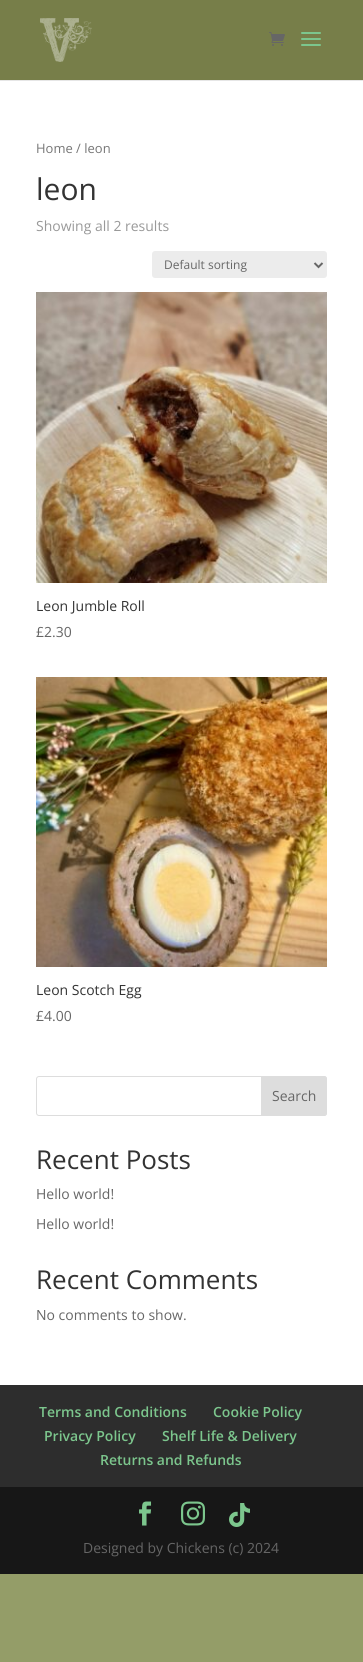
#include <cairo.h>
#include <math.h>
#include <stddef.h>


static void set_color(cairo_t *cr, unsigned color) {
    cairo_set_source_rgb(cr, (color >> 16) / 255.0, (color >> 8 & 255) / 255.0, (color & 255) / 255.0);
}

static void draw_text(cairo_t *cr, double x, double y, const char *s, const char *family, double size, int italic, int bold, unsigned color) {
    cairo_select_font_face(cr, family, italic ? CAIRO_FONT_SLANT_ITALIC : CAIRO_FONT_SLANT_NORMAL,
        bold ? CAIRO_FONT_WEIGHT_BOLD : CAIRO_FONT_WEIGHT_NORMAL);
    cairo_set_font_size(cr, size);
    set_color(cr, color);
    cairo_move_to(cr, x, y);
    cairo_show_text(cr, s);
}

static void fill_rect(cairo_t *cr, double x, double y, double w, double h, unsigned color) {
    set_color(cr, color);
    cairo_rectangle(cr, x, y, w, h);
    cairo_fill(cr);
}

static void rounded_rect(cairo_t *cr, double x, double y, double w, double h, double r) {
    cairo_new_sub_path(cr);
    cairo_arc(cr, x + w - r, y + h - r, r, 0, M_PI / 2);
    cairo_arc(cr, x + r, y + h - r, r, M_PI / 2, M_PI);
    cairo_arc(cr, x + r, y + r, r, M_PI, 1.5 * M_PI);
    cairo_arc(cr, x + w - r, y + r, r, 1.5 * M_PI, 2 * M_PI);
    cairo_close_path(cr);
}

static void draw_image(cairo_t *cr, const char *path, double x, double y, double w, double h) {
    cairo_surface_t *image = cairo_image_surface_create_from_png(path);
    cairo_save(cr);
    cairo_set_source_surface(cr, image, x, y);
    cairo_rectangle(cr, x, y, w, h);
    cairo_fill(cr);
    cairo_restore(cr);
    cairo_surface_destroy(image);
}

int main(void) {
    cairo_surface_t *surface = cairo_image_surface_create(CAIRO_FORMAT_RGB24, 363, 1662);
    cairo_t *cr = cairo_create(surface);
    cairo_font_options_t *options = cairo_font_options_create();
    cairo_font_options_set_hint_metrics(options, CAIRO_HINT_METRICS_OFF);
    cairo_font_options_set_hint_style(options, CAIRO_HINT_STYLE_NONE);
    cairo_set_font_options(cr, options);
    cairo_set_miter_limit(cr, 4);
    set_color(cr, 0x949D68);
    cairo_paint(cr);
    fill_rect(cr, 0, 80, 363, 1, 0xE6E6E6);
    fill_rect(cr, 0, 0, 363, 80, 0x777E49);
    draw_image(cr, "assets/img1.png", 40, 18, 52, 44);
    draw_image(cr, "assets/img2.png", 269, 32, 16, 14);
    draw_image(cr, "assets/img3.png", 301, 32, 20, 14);
    fill_rect(cr, 0, 81, 363, 1304, 0xFFFFFF);
    draw_text(cr, 36, 153, "Home / leon", "Open Sans", 13, 0, 0, 0x767676);
    draw_text(cr, 36, 200, "leon", "Open Sans", 30, 0, 0, 0x333333);
    draw_text(cr, 36, 231, "Showing all 2 results", "Open Sans", 14, 0, 0, 0x999999);
    set_color(cr, 0xECECEC);
    rounded_rect(cr, 152, 251, 175, 27, 3);
    cairo_fill(cr);
    cairo_new_path(cr);
    cairo_move_to(cr, 314.5, 263);
    cairo_line_to(cr, 318.5, 267);
    cairo_line_to(cr, 322.5, 263);
    set_color(cr, 0x666666);
    cairo_stroke(cr);
    draw_text(cr, 164, 269, "Default sorting", "Open Sans", 12, 0, 0, 0x666666);
    draw_image(cr, "assets/img4.png", 36, 292, 291, 291);
    draw_text(cr, 36, 611, "Leon Jumble Roll", "Open Sans", 14, 0, 0, 0x333333);
    draw_text(cr, 36, 637, "£2.30", "Open Sans", 14, 0, 0, 0x666666);
    draw_image(cr, "assets/img5.png", 36, 677, 291, 290);
    draw_text(cr, 36, 995, "Leon Scotch Egg", "Open Sans", 14, 0, 0, 0x333333);
    draw_text(cr, 36, 1021, "£4.00", "Open Sans", 14, 0, 0, 0x666666);
    rounded_rect(cr, 36.5, 1076.5, 290, 39, 2.5);
    set_color(cr, 0xDDDDDD);
    cairo_set_line_width(cr, 1);
    cairo_stroke(cr);
    cairo_new_path(cr);
    cairo_move_to(cr, 261.5, 1076.5);
    cairo_line_to(cr, 324, 1076.5);
    cairo_curve_to(cr, 325.5, 1076.5, 326.5, 1077.5, 326.5, 1079);
    cairo_line_to(cr, 326.5, 1113);
    cairo_curve_to(cr, 326.5, 1114.5, 325.5, 1115.5, 324, 1115.5);
    cairo_line_to(cr, 261.5, 1115.5);
    cairo_close_path(cr);
    cairo_fill_preserve(cr);
    cairo_stroke(cr);
    draw_text(cr, 272, 1101, "Search", "Open Sans", 14, 0, 0, 0x666666);
    draw_text(cr, 36, 1169, "Recent Posts", "Open Sans", 26, 0, 0, 0x333333);
    draw_text(cr, 36, 1199, "Hello world!", "Open Sans", 14, 0, 0, 0x666666);
    draw_text(cr, 36, 1229, "Hello world!", "Open Sans", 14, 0, 0, 0x666666);
    draw_text(cr, 36, 1289, "Recent Comments", "Open Sans", 26, 0, 0, 0x333333);
    draw_text(cr, 36, 1320, "No comments to show.", "Open Sans", 14, 0, 0, 0x666666);
    fill_rect(cr, 0, 1385, 363, 102, 0x2D2D2D);
    draw_text(cr, 39, 1417, "Terms and Conditions", "Open Sans SemiBold", 14, 0, 0, 0x7CC68D);
    draw_text(cr, 213, 1417, "Cookie Policy", "Open Sans SemiBold", 14, 0, 0, 0x7CC68D);
    draw_text(cr, 44, 1441, "Privacy Policy", "Open Sans SemiBold", 14, 0, 0, 0x7CC68D);
    draw_text(cr, 162, 1441, "Shelf Life & Delivery", "Open Sans SemiBold", 14, 0, 0, 0x7CC68D);
    draw_text(cr, 100, 1465, "Returns and Refunds", "Open Sans SemiBold", 14, 0, 0, 0x7CC68D);
    fill_rect(cr, 0, 1487, 363, 87, 0x171717);
    draw_image(cr, "assets/img6.png", 139, 1501, 13, 25);
    draw_image(cr, "assets/img7.png", 181, 1501, 24, 25);
    draw_image(cr, "assets/img8.png", 229, 1503, 21, 24);
    draw_text(cr, 83, 1553, "Designed by Chickens (c) 2024", "Open Sans", 14, 0, 0, 0x666666);
    cairo_surface_write_to_png(surface, "output.png");
    cairo_font_options_destroy(options);
    cairo_destroy(cr);
    cairo_surface_destroy(surface);
    return 0;
}
